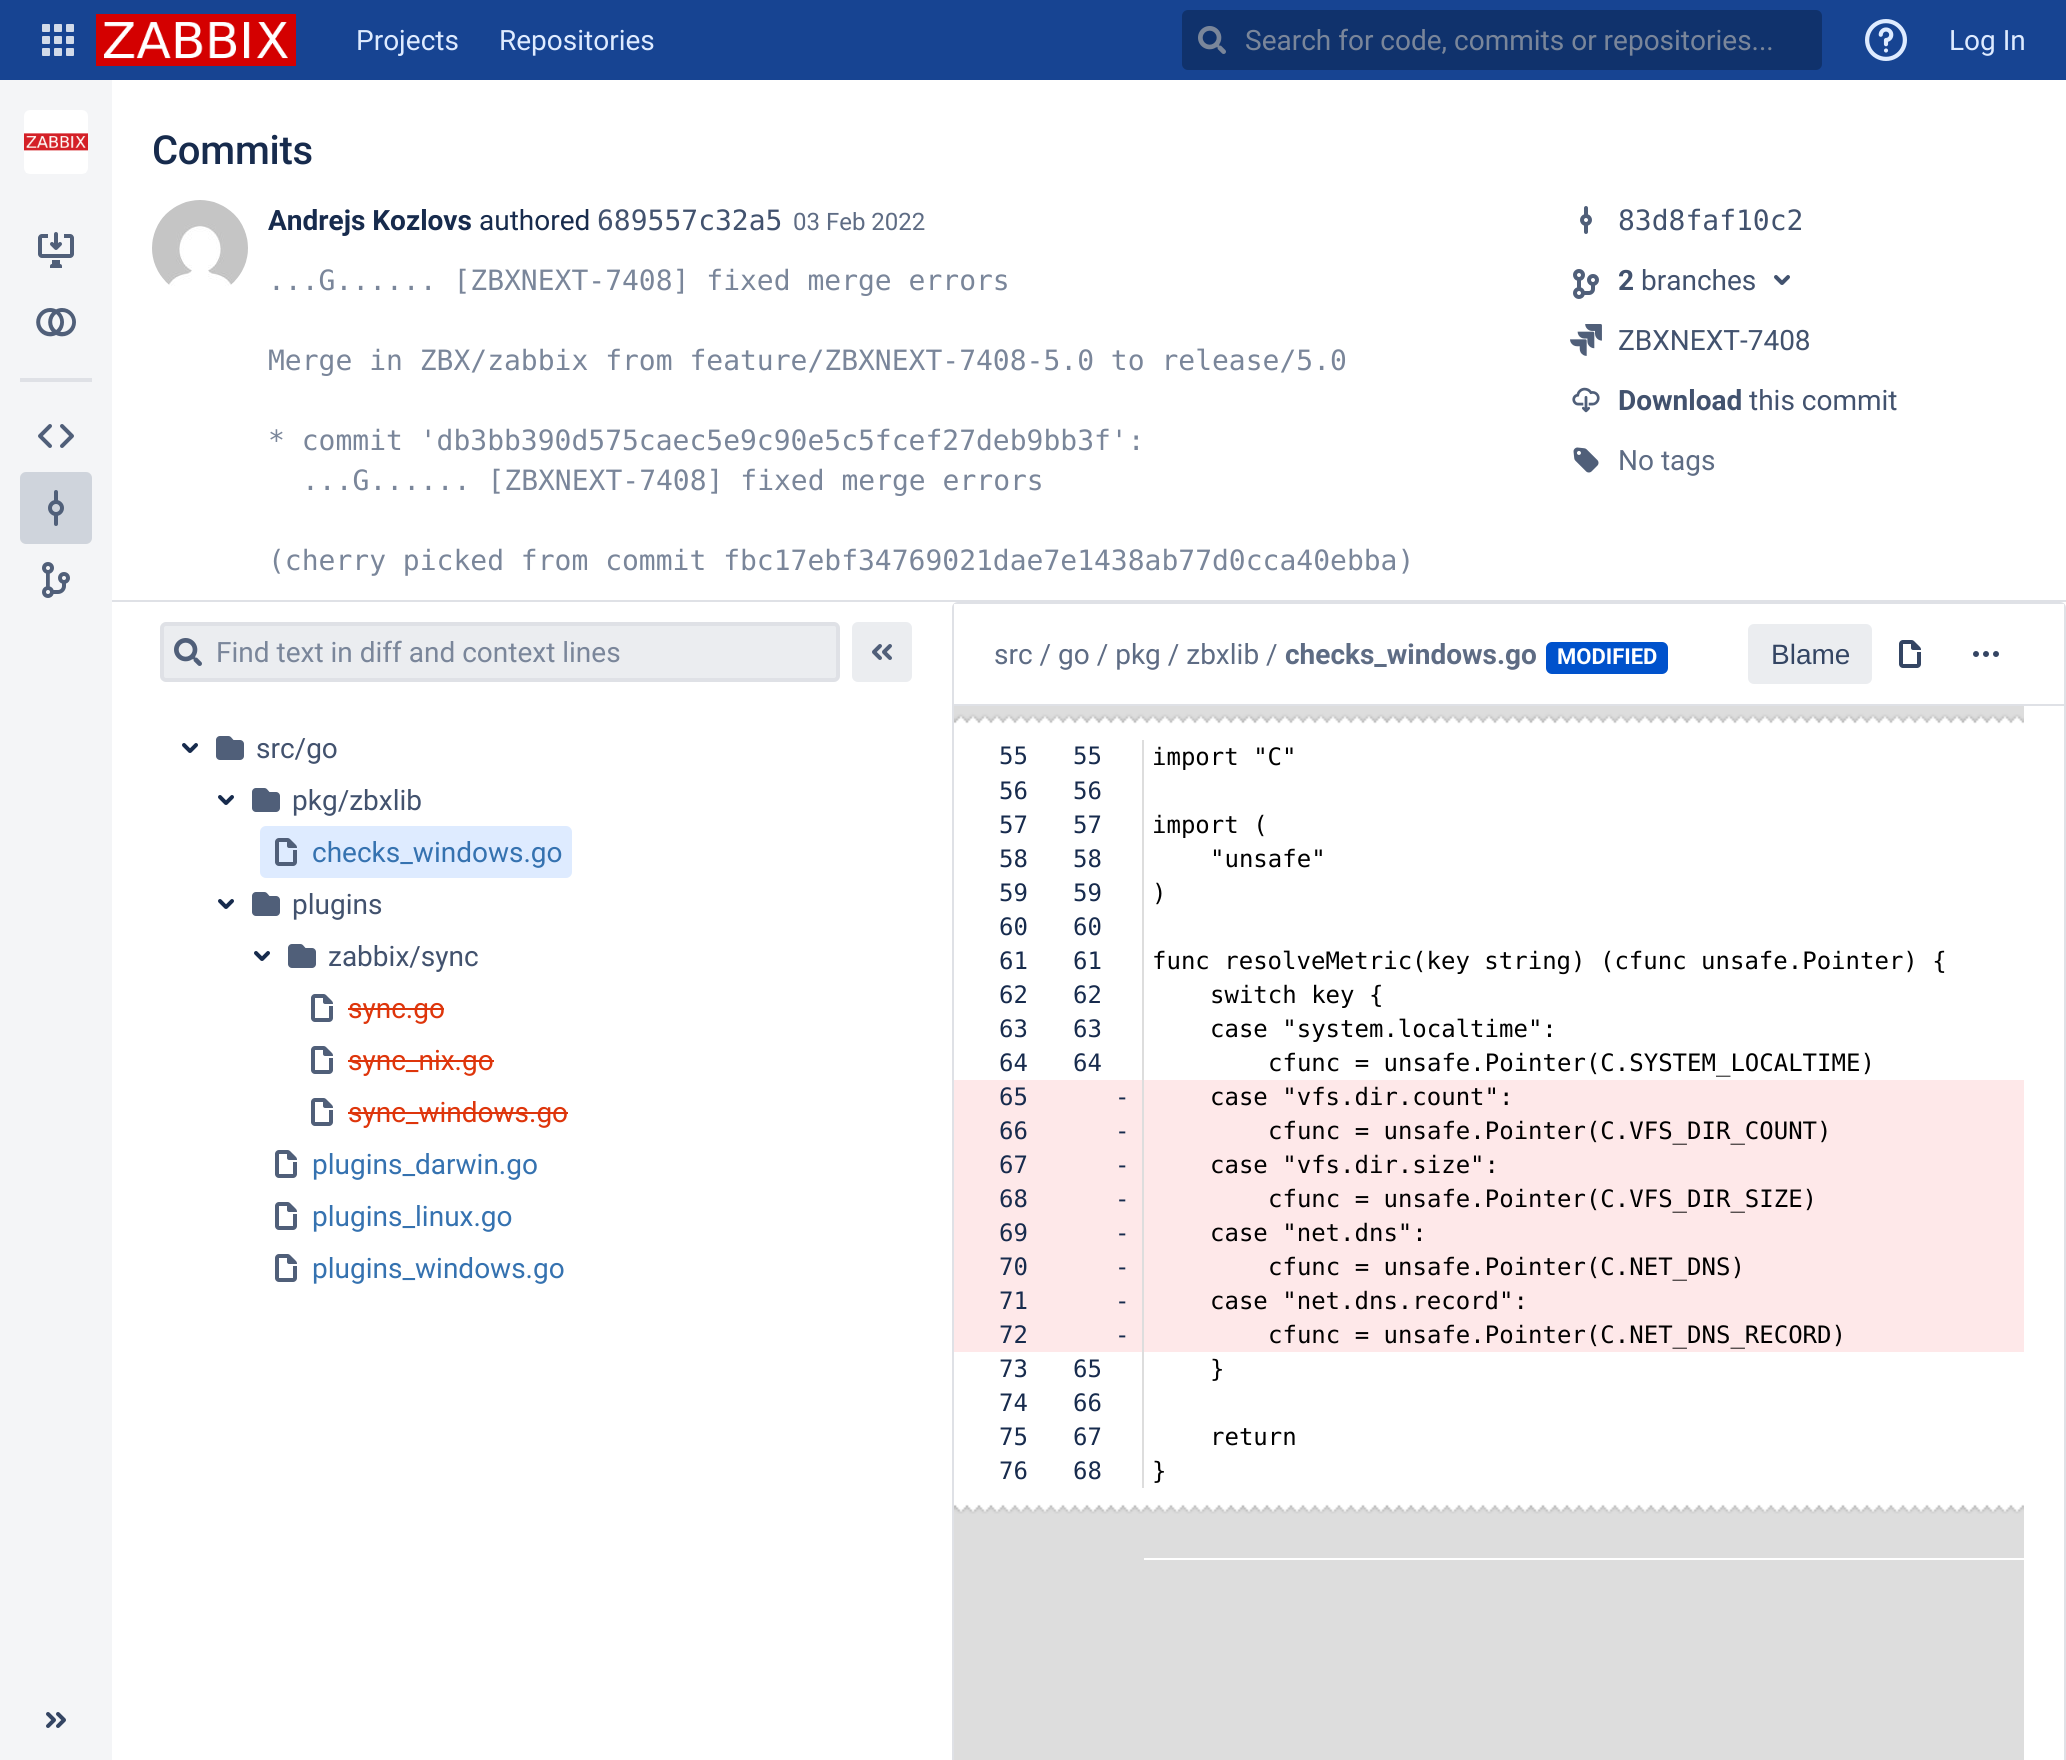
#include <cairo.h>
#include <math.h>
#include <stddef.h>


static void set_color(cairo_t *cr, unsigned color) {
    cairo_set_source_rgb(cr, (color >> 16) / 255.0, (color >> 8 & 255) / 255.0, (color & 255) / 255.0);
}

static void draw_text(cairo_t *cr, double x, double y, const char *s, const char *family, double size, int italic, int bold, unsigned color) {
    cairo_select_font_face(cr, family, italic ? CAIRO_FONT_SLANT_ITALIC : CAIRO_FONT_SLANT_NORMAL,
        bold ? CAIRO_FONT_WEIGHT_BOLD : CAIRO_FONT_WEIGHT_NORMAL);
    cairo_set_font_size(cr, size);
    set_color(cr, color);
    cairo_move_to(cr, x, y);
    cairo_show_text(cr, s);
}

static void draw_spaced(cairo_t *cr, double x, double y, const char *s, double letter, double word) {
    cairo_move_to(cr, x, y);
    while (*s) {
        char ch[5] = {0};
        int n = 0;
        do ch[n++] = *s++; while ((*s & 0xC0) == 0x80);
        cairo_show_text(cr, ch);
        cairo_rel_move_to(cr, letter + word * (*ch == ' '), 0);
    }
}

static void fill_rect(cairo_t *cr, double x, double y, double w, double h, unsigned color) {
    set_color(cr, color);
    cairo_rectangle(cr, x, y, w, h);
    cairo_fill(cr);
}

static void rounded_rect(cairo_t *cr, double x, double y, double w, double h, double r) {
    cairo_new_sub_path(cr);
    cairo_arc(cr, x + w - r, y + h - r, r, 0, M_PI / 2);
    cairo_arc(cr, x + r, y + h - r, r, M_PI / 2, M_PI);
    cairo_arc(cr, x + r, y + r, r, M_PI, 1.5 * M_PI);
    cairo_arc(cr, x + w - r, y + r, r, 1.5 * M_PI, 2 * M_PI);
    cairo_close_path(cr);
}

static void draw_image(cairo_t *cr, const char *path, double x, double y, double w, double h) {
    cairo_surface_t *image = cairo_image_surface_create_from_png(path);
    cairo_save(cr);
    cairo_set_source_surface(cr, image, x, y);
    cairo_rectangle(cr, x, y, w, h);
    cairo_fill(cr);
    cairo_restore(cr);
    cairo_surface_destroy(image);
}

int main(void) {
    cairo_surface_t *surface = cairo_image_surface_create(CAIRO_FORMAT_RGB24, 2066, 1760);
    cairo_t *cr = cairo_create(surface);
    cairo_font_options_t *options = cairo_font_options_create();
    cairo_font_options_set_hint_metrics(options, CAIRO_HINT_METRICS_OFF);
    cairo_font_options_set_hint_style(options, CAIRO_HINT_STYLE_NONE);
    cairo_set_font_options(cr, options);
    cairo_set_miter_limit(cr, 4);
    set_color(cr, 0xFFFFFF);
    cairo_paint(cr);
    fill_rect(cr, 0, 0, 2066, 80, 0x174492);
    draw_image(cr, "assets/img1.png", 42, 24, 32, 32);
    draw_image(cr, "assets/img2.png", 96, 14, 200, 52);
    draw_text(cr, 356, 50, "Projects", "Roboto", 28, 0, 0, 0xDEEBFF);
    draw_text(cr, 499, 50, "Repositories", "Roboto", 28, 0, 0, 0xDEEBFF);
    set_color(cr, 0x10326C);
    rounded_rect(cr, 1182, 10, 640, 60, 6);
    cairo_fill(cr);
    draw_image(cr, "assets/img3.png", 1198, 26, 28, 28);
    draw_text(cr, 1245, 50, "Search for code, commits or repositories...", "Roboto", 28, 0, 0, 0x7A869A);
    draw_image(cr, "assets/img4.png", 1865, 19, 42, 42);
    draw_text(cr, 1949, 50, "Log In", "Roboto", 28, 0, 0, 0xDEEBFF);
    fill_rect(cr, 0, 80, 112, 1680, 0xF4F5F7);
    draw_image(cr, "assets/img5.png", 24, 110, 64, 64);
    draw_image(cr, "assets/img6.png", 38, 232, 36, 36);
    draw_image(cr, "assets/img7.png", 36, 308, 40, 29);
    fill_rect(cr, 20, 378, 72, 4, 0xDFE1E6);
    draw_image(cr, "assets/img8.png", 38, 424, 36, 24);
    set_color(cr, 0xE1E4E9);
    rounded_rect(cr, 20, 472, 72, 72, 6);
    cairo_fill(cr);
    cairo_set_source_rgba(cr, 0.035, 0.118, 0.259, 0.08);
    rounded_rect(cr, 20, 472, 72, 72, 6);
    cairo_fill(cr);
    draw_image(cr, "assets/img9.png", 48, 490, 16, 36);
    draw_image(cr, "assets/img10.png", 42, 562, 28, 36);
    draw_image(cr, "assets/img11.png", 46, 1712, 20, 16);
    fill_rect(cr, 112, 600, 1954, 2, 0xDFE1E6);
    cairo_select_font_face(cr, "Roboto Medium", CAIRO_FONT_SLANT_NORMAL, CAIRO_FONT_WEIGHT_NORMAL);
    cairo_set_font_size(cr, 40);
    set_color(cr, 0x172B4D);
    draw_spaced(cr, 152, 164, "Commits", -0.25, 0);
    draw_image(cr, "assets/img12.png", 152, 200, 96, 86);
    draw_text(cr, 268, 230, "Andrejs Kozlovs", "Roboto", 28, 0, 1, 0x172B4D);
    draw_text(cr, 479, 230, "authored", "Roboto", 28, 0, 0, 0x172B4D);
    draw_text(cr, 597, 230, "689557c32a5", "DejaVu Sans Mono", 28, 0, 0, 0x42526E);
    draw_text(cr, 793, 230, "03 Feb 2022", "Roboto", 24, 0, 0, 0x5E6C84);
    draw_image(cr, "assets/img13.png", 1580, 206, 12, 28);
    draw_text(cr, 1618, 230, "83d8faf10c2", "DejaVu Sans Mono", 28, 0, 0, 0x42526E);
    draw_image(cr, "assets/img14.png", 1573, 269, 26, 30);
    draw_text(cr, 1618, 290, "2", "Roboto", 28, 0, 1, 0x42526E);
    draw_text(cr, 1641, 290, "branches", "Roboto", 28, 0, 0, 0x42526E);
    draw_image(cr, "assets/img15.png", 1774, 275, 16, 10);
    draw_image(cr, "assets/img16.png", 1570, 324, 32, 32);
    draw_text(cr, 1618, 350, "ZBXNEXT-7408", "Roboto", 28, 0, 0, 0x42526E);
    draw_image(cr, "assets/img17.png", 1572, 387, 28, 26);
    draw_text(cr, 1618, 410, "Download", "Roboto", 28, 0, 1, 0x42526E);
    draw_text(cr, 1749, 410, "this commit", "Roboto", 28, 0, 0, 0x42526E);
    draw_image(cr, "assets/img18.png", 1573, 447, 26, 26);
    draw_text(cr, 1618, 470, "No tags", "Roboto", 28, 0, 0, 0x5E6C84);
    draw_text(cr, 268, 290, "...G...... [ZBXNEXT-7408] fixed merge errors", "DejaVu Sans Mono", 28, 0, 0, 0x7A869A);
    draw_text(cr, 268, 370, "Merge in ZBX/zabbix from feature/ZBXNEXT-7408-5.0 to release/5.0", "DejaVu Sans Mono", 28, 0, 0, 0x7A869A);
    draw_text(cr, 268, 450, "* commit 'db3bb390d575caec5e9c90e5c5fcef27deb9bb3f':", "DejaVu Sans Mono", 28, 0, 0, 0x7A869A);
    draw_text(cr, 302, 490, "...G...... [ZBXNEXT-7408] fixed merge errors", "DejaVu Sans Mono", 28, 0, 0, 0x7A869A);
    draw_text(cr, 268, 570, "(cherry picked from commit fbc17ebf34769021dae7e1438ab77d0cca40ebba)", "DejaVu Sans Mono", 28, 0, 0, 0x7A869A);
    set_color(cr, 0xEBEDF0);
    rounded_rect(cr, 162, 624, 676, 56, 4);
    cairo_fill_preserve(cr);
    set_color(cr, 0xDFE1E6);
    cairo_set_line_width(cr, 4);
    cairo_stroke(cr);
    draw_image(cr, "assets/img19.png", 174, 638, 28, 28);
    draw_text(cr, 216, 662, "Find text in diff and context lines", "Roboto", 28, 0, 0, 0x7A869A);
    set_color(cr, 0xEBEDF0);
    rounded_rect(cr, 852, 622, 60, 60, 6);
    cairo_fill(cr);
    draw_image(cr, "assets/img20.png", 872, 644, 20, 16);
    draw_image(cr, "assets/img21.png", 182, 743, 16, 10);
    draw_image(cr, "assets/img22.png", 216, 736, 28, 24);
    draw_text(cr, 256, 758, "src/go", "Roboto", 28, 0, 0, 0x42526E);
    draw_image(cr, "assets/img21.png", 218, 795, 16, 10);
    draw_image(cr, "assets/img22.png", 252, 788, 28, 24);
    draw_text(cr, 292, 810, "pkg/zbxlib", "Roboto", 28, 0, 0, 0x42526E);
    set_color(cr, 0xDEEBFF);
    rounded_rect(cr, 260, 826, 312, 52, 6);
    cairo_fill(cr);
    draw_image(cr, "assets/img23.png", 275, 838, 22, 28);
    draw_text(cr, 312, 862, "checks_windows.go", "Roboto", 28, 0, 0, 0x3572B0);
    draw_image(cr, "assets/img21.png", 218, 899, 16, 10);
    draw_image(cr, "assets/img22.png", 252, 892, 28, 24);
    draw_text(cr, 292, 914, "plugins", "Roboto", 28, 0, 0, 0x42526E);
    draw_image(cr, "assets/img21.png", 254, 951, 16, 10);
    draw_image(cr, "assets/img22.png", 288, 944, 28, 24);
    draw_text(cr, 328, 966, "zabbix/sync", "Roboto", 28, 0, 0, 0x42526E);
    draw_image(cr, "assets/img24.png", 311, 994, 22, 28);
    draw_text(cr, 348, 1018, "sync.go", "Roboto", 28, 0, 0, 0xDE350B);
    fill_rect(cr, 348, 1008, 96, 2, 0xDE350B);
    draw_image(cr, "assets/img24.png", 311, 1046, 22, 28);
    draw_text(cr, 348, 1070, "sync_nix.go", "Roboto", 28, 0, 0, 0xDE350B);
    fill_rect(cr, 348, 1060, 146, 2, 0xDE350B);
    draw_image(cr, "assets/img24.png", 311, 1098, 22, 28);
    draw_text(cr, 348, 1122, "sync_windows.go", "Roboto", 28, 0, 0, 0xDE350B);
    fill_rect(cr, 348, 1112, 220, 2, 0xDE350B);
    draw_image(cr, "assets/img24.png", 275, 1150, 22, 28);
    draw_text(cr, 312, 1174, "plugins_darwin.go", "Roboto", 28, 0, 0, 0x3572B0);
    draw_image(cr, "assets/img24.png", 275, 1202, 22, 28);
    draw_text(cr, 312, 1226, "plugins_linux.go", "Roboto", 28, 0, 0, 0x3572B0);
    draw_image(cr, "assets/img24.png", 275, 1254, 22, 28);
    draw_text(cr, 312, 1278, "plugins_windows.go", "Roboto", 28, 0, 0, 0x3572B0);
    cairo_new_path(cr);
    cairo_move_to(cr, 958, 603);
    cairo_line_to(cr, 2060, 603);
    cairo_curve_to(cr, 2063, 603, 2065, 605, 2065, 608);
    cairo_line_to(cr, 2065, 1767);
    cairo_line_to(cr, 953, 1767);
    cairo_line_to(cr, 953, 608);
    cairo_curve_to(cr, 953, 605, 955, 603, 958, 603);
    cairo_close_path(cr);
    set_color(cr, 0xDFE1E6);
    cairo_set_line_width(cr, 2);
    cairo_stroke(cr);
    fill_rect(cr, 954, 604, 1110, 3, 0xFFFFFF);
    fill_rect(cr, 954, 704, 1110, 2, 0xDFE1E6);
    draw_text(cr, 994, 664, "src / go / pkg / zbxlib /", "Roboto", 28, 0, 0, 0x5E6C84);
    draw_text(cr, 1285, 664, "checks_windows.go", "Roboto", 28, 0, 1, 0x5E6C84);
    set_color(cr, 0x0052CC);
    rounded_rect(cr, 1546, 642, 122, 32, 6);
    cairo_fill(cr);
    draw_text(cr, 1557, 664, "MODIFIED", "Roboto", 22, 0, 1, 0xFFFFFF);
    set_color(cr, 0xEBEDF0);
    rounded_rect(cr, 1748, 624, 124, 60, 6);
    cairo_fill(cr);
    draw_text(cr, 1771, 664, "Blame", "Liberation Sans", 28, 0, 0, 0x344563);
    draw_image(cr, "assets/img25.png", 1899, 640, 22, 28);
    draw_image(cr, "assets/img26.png", 1973, 651, 26, 6);
    fill_rect(cr, 954, 740, 1070, 1020, 0xDDDDDD);
    fill_rect(cr, 1144, 740, 880, 340, 0xFFFFFF);
    draw_image(cr, "assets/img27.png", 954, 706, 1070, 34);
    fill_rect(cr, 954, 740, 188, 34, 0xFFFFFF);
    draw_text(cr, 999, 764, "55", "DejaVu Sans Mono", 24, 0, 0, 0x172B4D);
    draw_text(cr, 1073, 764, "55", "DejaVu Sans Mono", 24, 0, 0, 0x172B4D);
    draw_text(cr, 1152, 765, "import \"C\"", "DejaVu Sans Mono", 24, 0, 0, 0x000000);
    fill_rect(cr, 954, 774, 188, 34, 0xFFFFFF);
    draw_text(cr, 999, 799, "56", "DejaVu Sans Mono", 24, 0, 0, 0x172B4D);
    draw_text(cr, 1073, 799, "56", "DejaVu Sans Mono", 24, 0, 0, 0x172B4D);
    fill_rect(cr, 954, 808, 188, 34, 0xFFFFFF);
    draw_text(cr, 999, 833, "57", "DejaVu Sans Mono", 24, 0, 0, 0x172B4D);
    draw_text(cr, 1073, 833, "57", "DejaVu Sans Mono", 24, 0, 0, 0x172B4D);
    draw_text(cr, 1152, 833, "import (", "DejaVu Sans Mono", 24, 0, 0, 0x000000);
    fill_rect(cr, 954, 842, 188, 34, 0xFFFFFF);
    draw_text(cr, 999, 867, "58", "DejaVu Sans Mono", 24, 0, 0, 0x172B4D);
    draw_text(cr, 1073, 867, "58", "DejaVu Sans Mono", 24, 0, 0, 0x172B4D);
    draw_text(cr, 1210, 867, "\"unsafe\"", "DejaVu Sans Mono", 24, 0, 0, 0x000000);
    fill_rect(cr, 954, 876, 188, 34, 0xFFFFFF);
    draw_text(cr, 999, 901, "59", "DejaVu Sans Mono", 24, 0, 0, 0x172B4D);
    draw_text(cr, 1073, 901, "59", "DejaVu Sans Mono", 24, 0, 0, 0x172B4D);
    draw_text(cr, 1152, 901, ")", "DejaVu Sans Mono", 24, 0, 0, 0x000000);
    fill_rect(cr, 954, 910, 188, 34, 0xFFFFFF);
    draw_text(cr, 999, 935, "60", "DejaVu Sans Mono", 24, 0, 0, 0x172B4D);
    draw_text(cr, 1073, 935, "60", "DejaVu Sans Mono", 24, 0, 0, 0x172B4D);
    fill_rect(cr, 954, 944, 188, 34, 0xFFFFFF);
    draw_text(cr, 999, 969, "61", "DejaVu Sans Mono", 24, 0, 0, 0x172B4D);
    draw_text(cr, 1073, 969, "61", "DejaVu Sans Mono", 24, 0, 0, 0x172B4D);
    draw_text(cr, 1152, 969, "func resolveMetric(key string) (cfunc unsafe.Pointer) {", "DejaVu Sans Mono", 24, 0, 0, 0x000000);
    fill_rect(cr, 954, 978, 188, 34, 0xFFFFFF);
    draw_text(cr, 999, 1003, "62", "DejaVu Sans Mono", 24, 0, 0, 0x172B4D);
    draw_text(cr, 1073, 1003, "62", "DejaVu Sans Mono", 24, 0, 0, 0x172B4D);
    draw_text(cr, 1210, 1003, "switch key {", "DejaVu Sans Mono", 24, 0, 0, 0x000000);
    fill_rect(cr, 954, 1012, 188, 34, 0xFFFFFF);
    draw_text(cr, 999, 1037, "63", "DejaVu Sans Mono", 24, 0, 0, 0x172B4D);
    draw_text(cr, 1073, 1037, "63", "DejaVu Sans Mono", 24, 0, 0, 0x172B4D);
    draw_text(cr, 1210, 1037, "case \"system.localtime\":", "DejaVu Sans Mono", 24, 0, 0, 0x000000);
    fill_rect(cr, 954, 1046, 188, 34, 0xFFFFFF);
    draw_text(cr, 999, 1071, "64", "DejaVu Sans Mono", 24, 0, 0, 0x172B4D);
    draw_text(cr, 1073, 1071, "64", "DejaVu Sans Mono", 24, 0, 0, 0x172B4D);
    draw_text(cr, 1268, 1071, "cfunc = unsafe.Pointer(C.SYSTEM_LOCALTIME)", "DejaVu Sans Mono", 24, 0, 0, 0x000000);
    fill_rect(cr, 1144, 1080, 880, 272, 0xFEE8E9);
    fill_rect(cr, 954, 1080, 188, 34, 0xFEE8E9);
    draw_text(cr, 999, 1105, "65", "DejaVu Sans Mono", 24, 0, 0, 0x172B4D);
    draw_text(cr, 1115, 1105, "-", "DejaVu Sans Mono", 24, 0, 0, 0x172B4D);
    draw_text(cr, 1210, 1105, "case \"vfs.dir.count\":", "DejaVu Sans Mono", 24, 0, 0, 0x000000);
    fill_rect(cr, 954, 1114, 188, 34, 0xFEE8E9);
    draw_text(cr, 999, 1139, "66", "DejaVu Sans Mono", 24, 0, 0, 0x172B4D);
    draw_text(cr, 1115, 1139, "-", "DejaVu Sans Mono", 24, 0, 0, 0x172B4D);
    draw_text(cr, 1268, 1139, "cfunc = unsafe.Pointer(C.VFS_DIR_COUNT)", "DejaVu Sans Mono", 24, 0, 0, 0x000000);
    fill_rect(cr, 954, 1148, 188, 34, 0xFEE8E9);
    draw_text(cr, 999, 1173, "67", "DejaVu Sans Mono", 24, 0, 0, 0x172B4D);
    draw_text(cr, 1115, 1173, "-", "DejaVu Sans Mono", 24, 0, 0, 0x172B4D);
    draw_text(cr, 1210, 1173, "case \"vfs.dir.size\":", "DejaVu Sans Mono", 24, 0, 0, 0x000000);
    fill_rect(cr, 954, 1182, 188, 34, 0xFEE8E9);
    draw_text(cr, 999, 1207, "68", "DejaVu Sans Mono", 24, 0, 0, 0x172B4D);
    draw_text(cr, 1115, 1207, "-", "DejaVu Sans Mono", 24, 0, 0, 0x172B4D);
    draw_text(cr, 1268, 1207, "cfunc = unsafe.Pointer(C.VFS_DIR_SIZE)", "DejaVu Sans Mono", 24, 0, 0, 0x000000);
    fill_rect(cr, 954, 1216, 188, 34, 0xFEE8E9);
    draw_text(cr, 999, 1241, "69", "DejaVu Sans Mono", 24, 0, 0, 0x172B4D);
    draw_text(cr, 1115, 1241, "-", "DejaVu Sans Mono", 24, 0, 0, 0x172B4D);
    draw_text(cr, 1210, 1241, "case \"net.dns\":", "DejaVu Sans Mono", 24, 0, 0, 0x000000);
    fill_rect(cr, 954, 1250, 188, 34, 0xFEE8E9);
    draw_text(cr, 999, 1275, "70", "DejaVu Sans Mono", 24, 0, 0, 0x172B4D);
    draw_text(cr, 1115, 1275, "-", "DejaVu Sans Mono", 24, 0, 0, 0x172B4D);
    draw_text(cr, 1268, 1275, "cfunc = unsafe.Pointer(C.NET_DNS)", "DejaVu Sans Mono", 24, 0, 0, 0x000000);
    fill_rect(cr, 954, 1284, 188, 34, 0xFEE8E9);
    draw_text(cr, 999, 1309, "71", "DejaVu Sans Mono", 24, 0, 0, 0x172B4D);
    draw_text(cr, 1115, 1309, "-", "DejaVu Sans Mono", 24, 0, 0, 0x172B4D);
    draw_text(cr, 1210, 1309, "case \"net.dns.record\":", "DejaVu Sans Mono", 24, 0, 0, 0x000000);
    fill_rect(cr, 954, 1318, 188, 34, 0xFEE8E9);
    draw_text(cr, 999, 1343, "72", "DejaVu Sans Mono", 24, 0, 0, 0x172B4D);
    draw_text(cr, 1115, 1343, "-", "DejaVu Sans Mono", 24, 0, 0, 0x172B4D);
    draw_text(cr, 1268, 1343, "cfunc = unsafe.Pointer(C.NET_DNS_RECORD)", "DejaVu Sans Mono", 24, 0, 0, 0x000000);
    fill_rect(cr, 1144, 1352, 880, 208, 0xFFFFFF);
    fill_rect(cr, 954, 1352, 188, 34, 0xFFFFFF);
    draw_text(cr, 999, 1377, "73", "DejaVu Sans Mono", 24, 0, 0, 0x172B4D);
    draw_text(cr, 1073, 1377, "65", "DejaVu Sans Mono", 24, 0, 0, 0x172B4D);
    draw_text(cr, 1210, 1377, "}", "DejaVu Sans Mono", 24, 0, 0, 0x000000);
    fill_rect(cr, 954, 1386, 188, 34, 0xFFFFFF);
    draw_text(cr, 999, 1411, "74", "DejaVu Sans Mono", 24, 0, 0, 0x172B4D);
    draw_text(cr, 1073, 1411, "66", "DejaVu Sans Mono", 24, 0, 0, 0x172B4D);
    fill_rect(cr, 954, 1420, 188, 34, 0xFFFFFF);
    draw_text(cr, 999, 1445, "75", "DejaVu Sans Mono", 24, 0, 0, 0x172B4D);
    draw_text(cr, 1073, 1445, "67", "DejaVu Sans Mono", 24, 0, 0, 0x172B4D);
    draw_text(cr, 1210, 1445, "return", "DejaVu Sans Mono", 24, 0, 0, 0x000000);
    fill_rect(cr, 954, 1454, 188, 34, 0xFFFFFF);
    draw_text(cr, 999, 1479, "76", "DejaVu Sans Mono", 24, 0, 0, 0x172B4D);
    draw_text(cr, 1073, 1479, "68", "DejaVu Sans Mono", 24, 0, 0, 0x172B4D);
    draw_text(cr, 1152, 1479, "}", "DejaVu Sans Mono", 24, 0, 0, 0x000000);
    fill_rect(cr, 1144, 1514, 880, 44, 0xDDDDDD);
    draw_image(cr, "assets/img28.png", 954, 1488, 1070, 26);
    cairo_surface_write_to_png(surface, "output.png");
    cairo_font_options_destroy(options);
    cairo_destroy(cr);
    cairo_surface_destroy(surface);
    return 0;
}
